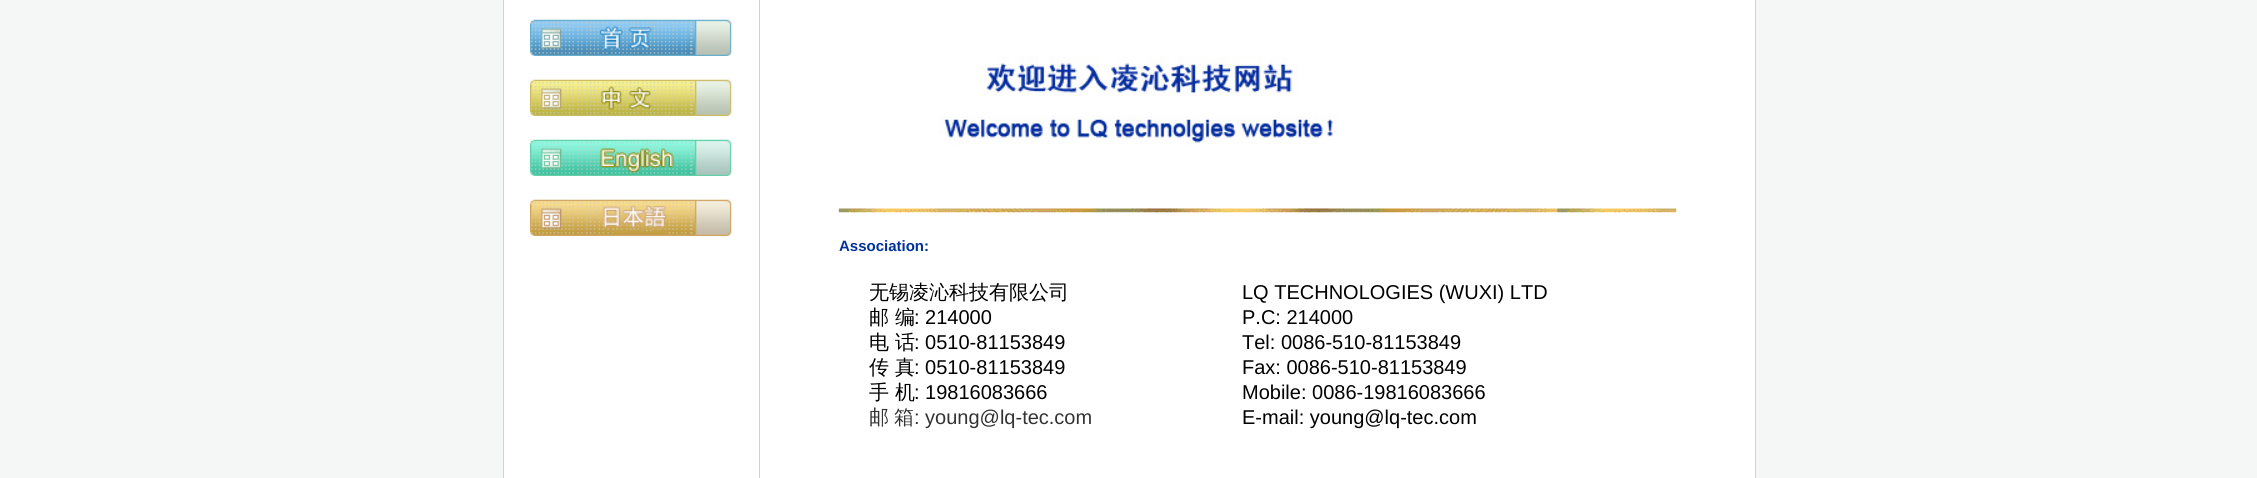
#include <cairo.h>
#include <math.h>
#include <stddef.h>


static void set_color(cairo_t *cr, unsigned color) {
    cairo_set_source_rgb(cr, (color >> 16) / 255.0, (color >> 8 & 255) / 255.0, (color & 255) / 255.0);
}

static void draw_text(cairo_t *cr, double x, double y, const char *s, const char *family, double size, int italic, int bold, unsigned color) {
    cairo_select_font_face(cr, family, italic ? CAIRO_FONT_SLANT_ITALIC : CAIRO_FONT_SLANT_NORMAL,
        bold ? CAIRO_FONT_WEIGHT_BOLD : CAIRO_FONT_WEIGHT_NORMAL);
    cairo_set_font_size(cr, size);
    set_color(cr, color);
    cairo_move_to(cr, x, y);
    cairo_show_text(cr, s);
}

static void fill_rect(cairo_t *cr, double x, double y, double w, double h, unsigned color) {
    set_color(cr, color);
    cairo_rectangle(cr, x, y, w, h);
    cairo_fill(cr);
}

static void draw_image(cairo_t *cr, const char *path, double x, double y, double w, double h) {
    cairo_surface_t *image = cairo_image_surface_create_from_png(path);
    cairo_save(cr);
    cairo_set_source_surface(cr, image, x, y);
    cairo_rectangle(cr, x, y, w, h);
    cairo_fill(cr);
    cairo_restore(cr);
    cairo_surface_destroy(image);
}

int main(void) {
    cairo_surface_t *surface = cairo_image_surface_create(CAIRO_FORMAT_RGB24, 2257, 478);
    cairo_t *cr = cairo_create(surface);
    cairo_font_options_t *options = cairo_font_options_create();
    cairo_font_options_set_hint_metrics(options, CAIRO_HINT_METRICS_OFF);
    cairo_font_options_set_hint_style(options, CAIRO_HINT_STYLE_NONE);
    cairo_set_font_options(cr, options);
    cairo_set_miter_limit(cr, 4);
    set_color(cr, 0xF5F6F6);
    cairo_paint(cr);
    fill_rect(cr, 504, 0, 1251, 478, 0xFFFFFF);
    fill_rect(cr, 1755, 0, 1, 478, 0xD2D2D2);
    fill_rect(cr, 503, 0, 1, 478, 0xD2D2D2);
    draw_image(cr, "assets/img1.png", 530, 19, 202, 37);
    draw_image(cr, "assets/img2.png", 530, 79, 202, 37);
    draw_image(cr, "assets/img3.png", 530, 139, 202, 37);
    draw_image(cr, "assets/img4.png", 530, 199, 202, 37);
    fill_rect(cr, 759, 0, 1, 478, 0xD2D2D2);
    draw_image(cr, "assets/img5.png", 939, 56, 400, 89);
    draw_image(cr, "assets/img6.png", 838, 208, 839, 5);
    draw_text(cr, 839, 251, "Association:", "Liberation Sans", 15, 0, 1, 0x003399);
    draw_text(cr, 869, 299, "无锡凌沁科技有限公司", "WenQuanYi Zen Hei Medium", 20, 0, 0, 0x000000);
    draw_text(cr, 1242, 299, "LQ TECHNOLOGIES (WUXI) LTD", "Liberation Sans", 20, 0, 0, 0x000000);
    draw_text(cr, 869, 324, "邮 编", "WenQuanYi Zen Hei Medium", 20, 0, 0, 0x000000);
    draw_text(cr, 914, 324, ": 214000", "Liberation Sans", 20, 0, 0, 0x000000);
    draw_text(cr, 1242, 324, "P.C: 214000", "Liberation Sans", 20, 0, 0, 0x000000);
    draw_text(cr, 869, 349, "电 话", "WenQuanYi Zen Hei Medium", 20, 0, 0, 0x000000);
    draw_text(cr, 914, 349, ": 0510-81153849", "Liberation Sans", 20, 0, 0, 0x000000);
    draw_text(cr, 1242, 349, "Tel: 0086-510-81153849", "Liberation Sans", 20, 0, 0, 0x000000);
    draw_text(cr, 869, 374, "传 真", "WenQuanYi Zen Hei Medium", 20, 0, 0, 0x000000);
    draw_text(cr, 914, 374, ": 0510-81153849", "Liberation Sans", 20, 0, 0, 0x000000);
    draw_text(cr, 1242, 374, "Fax: 0086-510-81153849", "Liberation Sans", 20, 0, 0, 0x000000);
    draw_text(cr, 869, 399, "手 机", "WenQuanYi Zen Hei Medium", 20, 0, 0, 0x000000);
    draw_text(cr, 914, 399, ": 19816083666", "Liberation Sans", 20, 0, 0, 0x000000);
    draw_text(cr, 869, 424, "邮", "WenQuanYi Zen Hei Medium", 20, 0, 0, 0x333333);
    draw_text(cr, 894, 424, "箱", "WenQuanYi Zen Hei Medium", 20, 0, 0, 0x333333);
    draw_text(cr, 914, 424, ": young@lq-tec.com", "Liberation Sans", 20, 0, 0, 0x333333);
    draw_text(cr, 1242, 399, "Mobile: 0086-19816083666", "Liberation Sans", 20, 0, 0, 0x000000);
    draw_text(cr, 1242, 424, "E-mail: young@lq-tec.com", "Liberation Sans", 20, 0, 0, 0x000000);
    cairo_surface_write_to_png(surface, "output.png");
    cairo_font_options_destroy(options);
    cairo_destroy(cr);
    cairo_surface_destroy(surface);
    return 0;
}
